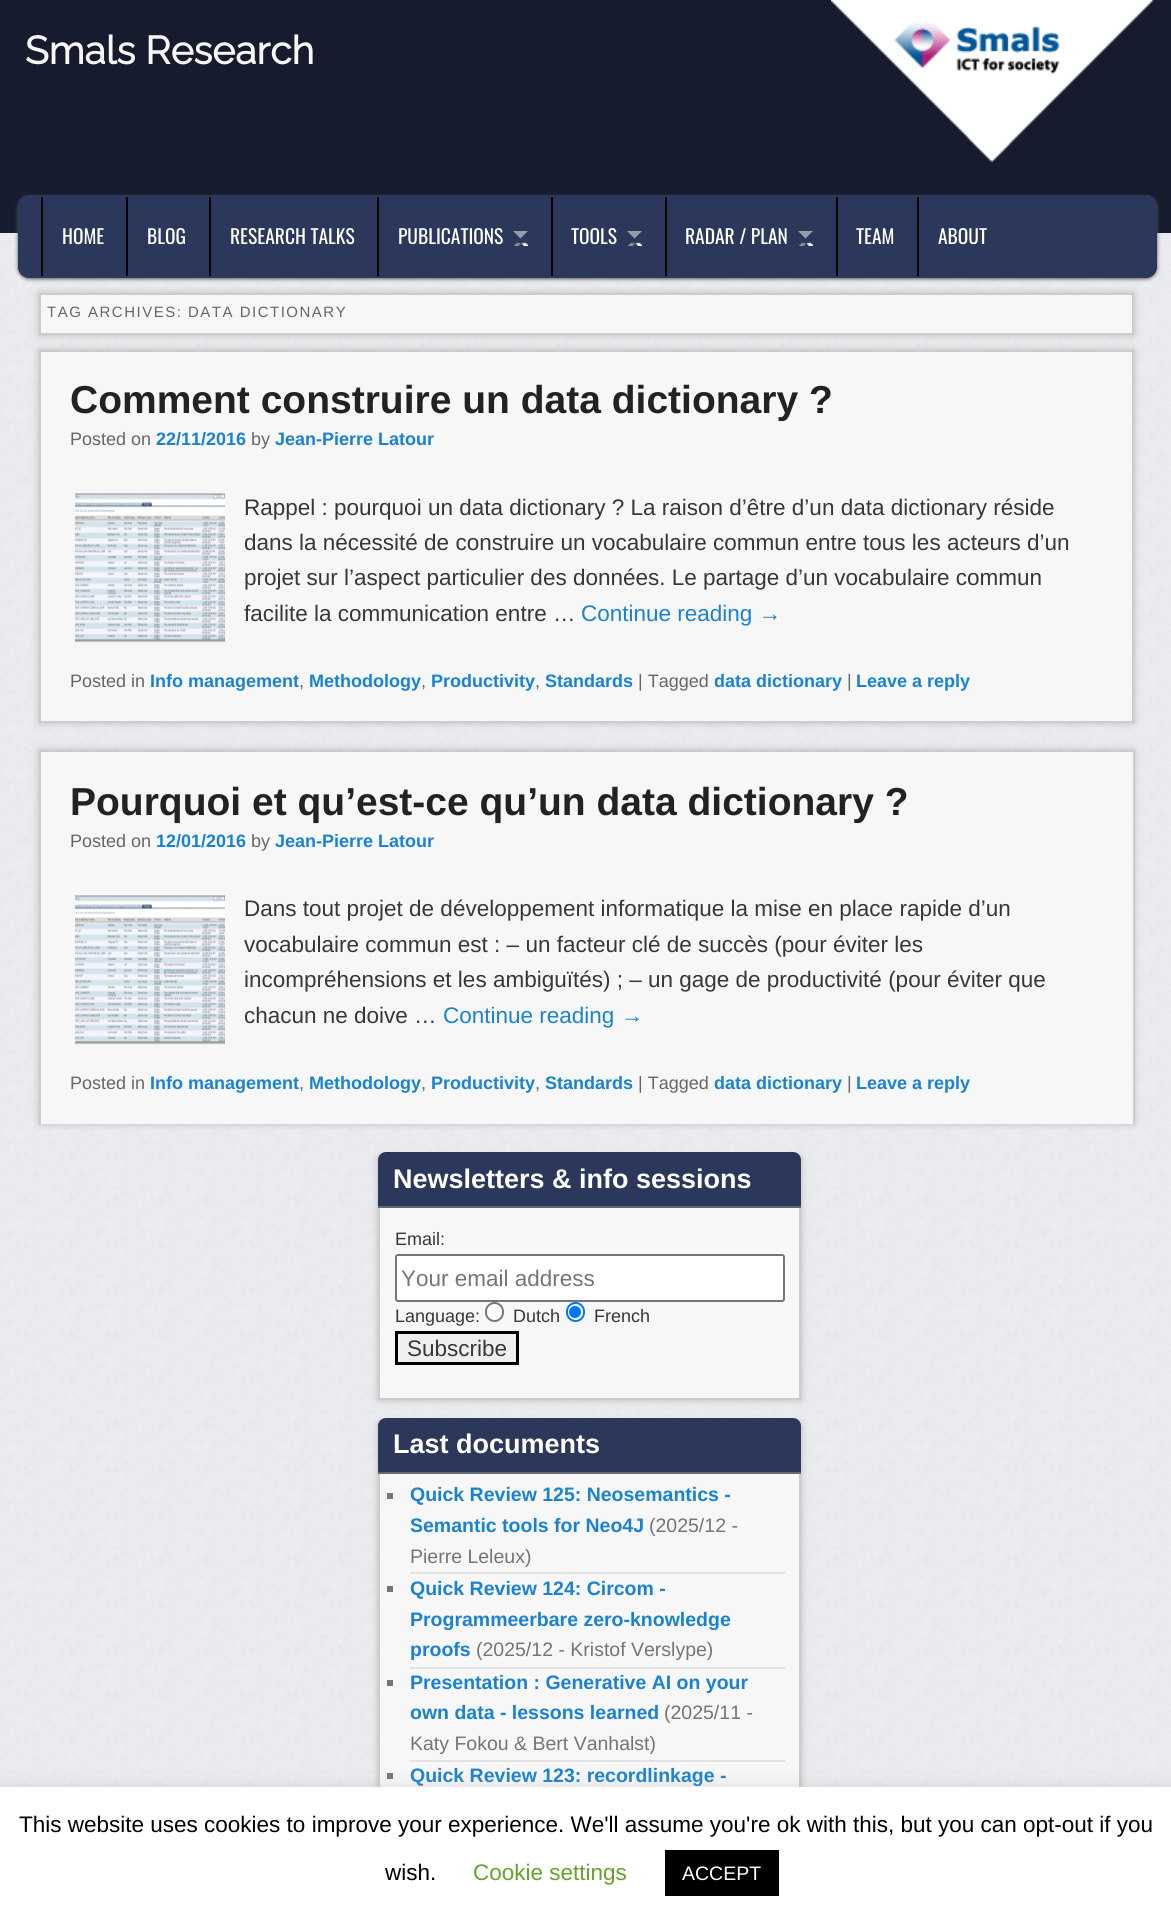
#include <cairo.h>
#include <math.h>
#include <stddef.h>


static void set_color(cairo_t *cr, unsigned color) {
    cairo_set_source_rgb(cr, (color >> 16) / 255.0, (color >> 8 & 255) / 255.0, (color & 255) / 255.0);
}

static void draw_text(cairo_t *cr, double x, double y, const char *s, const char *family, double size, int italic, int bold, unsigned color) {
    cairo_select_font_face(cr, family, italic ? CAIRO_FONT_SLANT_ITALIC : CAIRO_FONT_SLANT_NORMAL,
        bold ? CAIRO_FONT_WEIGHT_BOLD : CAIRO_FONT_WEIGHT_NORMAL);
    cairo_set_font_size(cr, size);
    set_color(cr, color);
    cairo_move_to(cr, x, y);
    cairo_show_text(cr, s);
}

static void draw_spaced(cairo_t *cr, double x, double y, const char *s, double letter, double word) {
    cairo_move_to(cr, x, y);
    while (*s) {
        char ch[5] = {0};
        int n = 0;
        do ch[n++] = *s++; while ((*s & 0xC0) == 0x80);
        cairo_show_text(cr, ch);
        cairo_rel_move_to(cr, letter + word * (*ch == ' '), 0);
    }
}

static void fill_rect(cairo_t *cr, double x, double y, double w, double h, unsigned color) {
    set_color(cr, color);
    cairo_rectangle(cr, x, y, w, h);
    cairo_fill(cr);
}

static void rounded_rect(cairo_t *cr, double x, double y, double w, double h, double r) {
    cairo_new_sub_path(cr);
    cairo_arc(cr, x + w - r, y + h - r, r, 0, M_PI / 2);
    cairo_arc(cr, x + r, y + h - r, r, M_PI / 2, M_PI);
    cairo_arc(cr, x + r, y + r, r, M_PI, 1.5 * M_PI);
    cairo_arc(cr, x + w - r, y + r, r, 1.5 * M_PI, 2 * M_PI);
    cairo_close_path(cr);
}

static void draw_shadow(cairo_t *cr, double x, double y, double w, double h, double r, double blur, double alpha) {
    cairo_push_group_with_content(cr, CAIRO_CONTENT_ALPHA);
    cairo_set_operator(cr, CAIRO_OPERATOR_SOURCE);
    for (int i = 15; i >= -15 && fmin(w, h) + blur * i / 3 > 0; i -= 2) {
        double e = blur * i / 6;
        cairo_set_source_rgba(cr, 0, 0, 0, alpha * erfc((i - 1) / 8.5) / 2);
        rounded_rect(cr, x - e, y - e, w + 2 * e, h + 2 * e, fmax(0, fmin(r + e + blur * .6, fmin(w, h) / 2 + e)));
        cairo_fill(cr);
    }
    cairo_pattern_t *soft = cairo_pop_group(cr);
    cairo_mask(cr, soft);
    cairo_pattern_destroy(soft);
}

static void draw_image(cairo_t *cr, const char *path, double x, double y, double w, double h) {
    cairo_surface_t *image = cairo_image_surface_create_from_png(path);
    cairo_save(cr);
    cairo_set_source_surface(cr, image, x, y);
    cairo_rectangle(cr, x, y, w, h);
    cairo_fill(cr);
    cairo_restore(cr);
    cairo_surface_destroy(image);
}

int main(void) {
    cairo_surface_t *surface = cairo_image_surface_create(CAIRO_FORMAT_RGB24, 1171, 1921);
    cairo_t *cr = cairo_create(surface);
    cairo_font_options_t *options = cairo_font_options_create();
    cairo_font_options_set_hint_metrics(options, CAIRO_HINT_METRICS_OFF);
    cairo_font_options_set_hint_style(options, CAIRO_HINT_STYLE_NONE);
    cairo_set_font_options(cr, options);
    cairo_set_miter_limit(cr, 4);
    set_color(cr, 0xFFFFFF);
    cairo_paint(cr);
    draw_image(cr, "assets/img1.png", 0, 233, 1171, 1554);
    fill_rect(cr, 0, 0, 1171, 233, 0x161B2E);
    draw_text(cr, 25, 64, "Smals Research", "Raleway", 39, 0, 1, 0xF7F7F7);
    draw_image(cr, "assets/img2.png", 831, 0, 323, 163);
    set_color(cr, 0x555555);
    draw_shadow(cr, 18, 197, 1139, 82, 11, 2, 1);
    set_color(cr, 0x2B385B);
    rounded_rect(cr, 19, 196, 1137, 81, 10);
    cairo_fill_preserve(cr);
    cairo_stroke(cr);
    fill_rect(cr, 41, 197, 2, 79, 0x000000);
    draw_text(cr, 62, 244, "HOME", "Oswald", 19.5, 0, 0, 0xFFFFFF);
    fill_rect(cr, 126, 197, 2, 79, 0x000000);
    draw_text(cr, 147, 244, "BLOG", "Oswald", 19.5, 0, 0, 0xFFFFFF);
    fill_rect(cr, 209, 197, 2, 79, 0x000000);
    draw_text(cr, 230, 244, "RESEARCH TALKS", "Oswald", 19.5, 0, 0, 0xFFFFFF);
    fill_rect(cr, 377, 197, 2, 79, 0x000000);
    draw_text(cr, 398, 244, "PUBLICATIONS", "Oswald", 19.5, 0, 0, 0xFFFFFF);
    draw_image(cr, "assets/img3.png", 514, 242, 14, 4);
    set_color(cr, 0x959CAD);
    cairo_new_path(cr);
    cairo_move_to(cr, 513, 231);
    cairo_line_to(cr, 528, 231);
    cairo_line_to(cr, 520.5, 238.5);
    cairo_close_path(cr);
    cairo_fill(cr);
    fill_rect(cr, 551, 197, 2, 79, 0x000000);
    draw_text(cr, 571, 244, "TOOLS", "Oswald", 19.5, 0, 0, 0xFFFFFF);
    draw_image(cr, "assets/img4.png", 628, 242, 14, 4);
    set_color(cr, 0x959CAD);
    cairo_new_path(cr);
    cairo_move_to(cr, 627, 231);
    cairo_line_to(cr, 642, 231);
    cairo_line_to(cr, 634.5, 238.5);
    cairo_close_path(cr);
    cairo_fill(cr);
    fill_rect(cr, 665, 197, 2, 79, 0x000000);
    draw_text(cr, 685, 244, "RADAR / PLAN", "Oswald", 19.5, 0, 0, 0xFFFFFF);
    draw_image(cr, "assets/img4.png", 799, 242, 14, 4);
    set_color(cr, 0x959CAD);
    cairo_new_path(cr);
    cairo_move_to(cr, 798, 231);
    cairo_line_to(cr, 813, 231);
    cairo_line_to(cr, 805.5, 238.5);
    cairo_close_path(cr);
    cairo_fill(cr);
    fill_rect(cr, 836, 197, 2, 79, 0x000000);
    draw_text(cr, 856, 244, "TEAM", "Oswald", 19.5, 0, 0, 0xFFFFFF);
    fill_rect(cr, 917, 197, 2, 79, 0x000000);
    draw_text(cr, 938, 244, "ABOUT", "Oswald", 19.5, 0, 0, 0xFFFFFF);
    set_color(cr, 0xBBBBBB);
    draw_shadow(cr, 39, 293, 1095, 42, 0, 4, 1);
    set_color(cr, 0xF7F7F7);
    cairo_rectangle(cr, 40, 294, 1093, 40);
    cairo_fill_preserve(cr);
    set_color(cr, 0xCCCCCC);
    cairo_stroke(cr);
    cairo_select_font_face(cr, "Liberation Sans", CAIRO_FONT_SLANT_NORMAL, CAIRO_FONT_WEIGHT_NORMAL);
    cairo_set_font_size(cr, 15);
    set_color(cr, 0x666666);
    draw_spaced(cr, 47, 317, "TAG ARCHIVES: DATA DICTIONARY", 1.5, 0);
    set_color(cr, 0xBBBBBB);
    draw_shadow(cr, 39, 350, 1095, 373, 0, 4, 1);
    set_color(cr, 0xF7F7F7);
    cairo_rectangle(cr, 40, 351, 1093, 371);
    cairo_fill_preserve(cr);
    set_color(cr, 0xCCCCCC);
    cairo_stroke(cr);
    draw_text(cr, 70, 413, "Comment construire un data dictionary ?", "Liberation Sans", 39, 0, 1, 0x222222);
    draw_text(cr, 70, 445, "Posted on", "Liberation Sans", 18, 0, 0, 0x666666);
    draw_text(cr, 156, 445, "22/11/2016", "Liberation Sans", 18, 0, 1, 0x1982D1);
    draw_text(cr, 251, 445, "by", "Liberation Sans", 18, 0, 0, 0x666666);
    draw_text(cr, 275, 445, "Jean-Pierre Latour", "Liberation Sans", 18, 0, 1, 0x1982D1);
    draw_image(cr, "assets/img5.png", 75, 493, 150, 150);
    draw_text(cr, 244, 515, "Rappel : pourquoi un data dictionary ? La raison d’être d’un data dictionary réside", "Liberation Sans", 22.5, 0, 0, 0x373737);
    draw_text(cr, 244, 550, "dans la nécessité de construire un vocabulaire commun entre tous les acteurs d’un", "Liberation Sans", 22.5, 0, 0, 0x373737);
    draw_text(cr, 244, 585, "projet sur l’aspect particulier des données. Le partage d’un vocabulaire commun", "Liberation Sans", 22.5, 0, 0, 0x373737);
    draw_text(cr, 244, 621, "facilite la communication entre …", "Liberation Sans", 22.5, 0, 0, 0x373737);
    draw_text(cr, 581, 621, "Continue reading →", "Liberation Sans", 22.5, 0, 0, 0x1982D1);
    draw_text(cr, 70, 687, "Posted in", "Liberation Sans", 18, 0, 0, 0x666666);
    draw_text(cr, 150, 687, "Info management", "Liberation Sans", 18, 0, 1, 0x1982D1);
    draw_text(cr, 299, 687, ",", "Liberation Sans", 18, 0, 0, 0x666666);
    draw_text(cr, 309, 687, "Methodology", "Liberation Sans", 18, 0, 1, 0x1982D1);
    draw_text(cr, 421, 687, ",", "Liberation Sans", 18, 0, 0, 0x666666);
    draw_text(cr, 431, 687, "Productivity", "Liberation Sans", 18, 0, 1, 0x1982D1);
    draw_text(cr, 535, 687, ",", "Liberation Sans", 18, 0, 0, 0x666666);
    draw_text(cr, 545, 687, "Standards", "Liberation Sans", 18, 0, 1, 0x1982D1);
    draw_text(cr, 638, 687, "| Tagged", "Liberation Sans", 18, 0, 0, 0x666666);
    draw_text(cr, 714, 687, "data dictionary", "Liberation Sans", 18, 0, 1, 0x1982D1);
    draw_text(cr, 847, 687, "|", "Liberation Sans", 18, 0, 0, 0x666666);
    draw_text(cr, 856, 687, "Leave a reply", "Liberation Sans", 18, 0, 1, 0x1982D1);
    set_color(cr, 0xBBBBBB);
    draw_shadow(cr, 39, 750, 1095, 374, 0, 4, 1);
    fill_rect(cr, 41, 752, 1092, 372, 0xF7F7F7);
    fill_rect(cr, 39, 750, 1095, 2, 0xCCCCCC);
    fill_rect(cr, 1133, 750, 2, 374, 0xCCCCCC);
    fill_rect(cr, 39, 750, 2, 374, 0xCCCCCC);
    draw_text(cr, 70, 815, "Pourquoi et qu’est-ce qu’un data dictionary ?", "Liberation Sans", 39, 0, 1, 0x222222);
    draw_text(cr, 70, 847, "Posted on", "Liberation Sans", 18, 0, 0, 0x666666);
    draw_text(cr, 156, 847, "12/01/2016", "Liberation Sans", 18, 0, 1, 0x1982D1);
    draw_text(cr, 251, 847, "by", "Liberation Sans", 18, 0, 0, 0x666666);
    draw_text(cr, 275, 847, "Jean-Pierre Latour", "Liberation Sans", 18, 0, 1, 0x1982D1);
    draw_image(cr, "assets/img5.png", 75, 895, 150, 150);
    draw_text(cr, 244, 916, "Dans tout projet de développement informatique la mise en place rapide d’un", "Liberation Sans", 22.5, 0, 0, 0x373737);
    draw_text(cr, 244, 952, "vocabulaire commun est : – un facteur clé de succès (pour éviter les", "Liberation Sans", 22.5, 0, 0, 0x373737);
    draw_text(cr, 244, 987, "incompréhensions et les ambiguïtés) ; – un gage de productivité (pour éviter que", "Liberation Sans", 22.5, 0, 0, 0x373737);
    draw_text(cr, 244, 1023, "chacun ne doive …", "Liberation Sans", 22.5, 0, 0, 0x373737);
    draw_text(cr, 443, 1023, "Continue reading →", "Liberation Sans", 22.5, 0, 0, 0x1982D1);
    draw_text(cr, 70, 1089, "Posted in", "Liberation Sans", 18, 0, 0, 0x666666);
    draw_text(cr, 150, 1089, "Info management", "Liberation Sans", 18, 0, 1, 0x1982D1);
    draw_text(cr, 299, 1089, ",", "Liberation Sans", 18, 0, 0, 0x666666);
    draw_text(cr, 309, 1089, "Methodology", "Liberation Sans", 18, 0, 1, 0x1982D1);
    draw_text(cr, 421, 1089, ",", "Liberation Sans", 18, 0, 0, 0x666666);
    draw_text(cr, 431, 1089, "Productivity", "Liberation Sans", 18, 0, 1, 0x1982D1);
    draw_text(cr, 535, 1089, ",", "Liberation Sans", 18, 0, 0, 0x666666);
    draw_text(cr, 545, 1089, "Standards", "Liberation Sans", 18, 0, 1, 0x1982D1);
    draw_text(cr, 638, 1089, "| Tagged", "Liberation Sans", 18, 0, 0, 0x666666);
    draw_text(cr, 714, 1089, "data dictionary", "Liberation Sans", 18, 0, 1, 0x1982D1);
    draw_text(cr, 847, 1089, "|", "Liberation Sans", 18, 0, 0, 0x666666);
    draw_text(cr, 856, 1089, "Leave a reply", "Liberation Sans", 18, 0, 1, 0x1982D1);
    set_color(cr, 0xBBBBBB);
    draw_shadow(cr, 378, 1158, 423, 242, 0, 4, 1);
    fill_rect(cr, 380, 1208, 419, 190, 0xF7F7F7);
    cairo_rectangle(cr, 379, 1159, 421, 240);
    set_color(cr, 0xCCCCCC);
    cairo_stroke(cr);
    set_color(cr, 0x2B385B);
    cairo_new_path(cr);
    cairo_move_to(cr, 386, 1152);
    cairo_line_to(cr, 793, 1152);
    cairo_curve_to(cr, 797.5, 1152, 801, 1155.5, 801, 1160);
    cairo_line_to(cr, 801, 1208);
    cairo_line_to(cr, 378, 1208);
    cairo_line_to(cr, 378, 1160);
    cairo_curve_to(cr, 378, 1155.5, 381.5, 1152, 386, 1152);
    cairo_close_path(cr);
    cairo_fill(cr);
    fill_rect(cr, 378, 1206, 423, 2, 0x66686E);
    draw_text(cr, 393, 1188, "Newsletters & info sessions", "Liberation Sans", 27, 0, 1, 0xFFFFFF);
    draw_text(cr, 395, 1245, "Email:", "Liberation Sans", 18, 0, 0, 0x373737);
    set_color(cr, 0xFFFFFF);
    rounded_rect(cr, 396, 1255, 388, 46, 2);
    cairo_fill_preserve(cr);
    set_color(cr, 0x767676);
    cairo_stroke(cr);
    draw_text(cr, 401, 1286, "Your email address", "Liberation Sans", 22.5, 0, 0, 0x757575);
    draw_text(cr, 395, 1322, "Language:", "Liberation Sans", 18, 0, 0, 0x373737);
    set_color(cr, 0xFFFFFF);
    rounded_rect(cr, 486, 1303, 17, 18, 8.5);
    cairo_fill_preserve(cr);
    set_color(cr, 0x767676);
    cairo_stroke(cr);
    draw_text(cr, 513, 1322, "Dutch", "Liberation Sans", 18, 0, 0, 0x373737);
    set_color(cr, 0xFFFFFF);
    rounded_rect(cr, 567, 1303, 17, 18, 8.5);
    cairo_fill_preserve(cr);
    set_color(cr, 0x0075FF);
    cairo_stroke(cr);
    cairo_arc(cr, 575, 1312, 6, 0, 2 * M_PI);
    cairo_fill(cr);
    draw_text(cr, 594, 1322, "French", "Liberation Sans", 18, 0, 0, 0x373737);
    set_color(cr, 0xEFEFEF);
    cairo_rectangle(cr, 396.5, 1332.5, 121, 31);
    cairo_fill_preserve(cr);
    set_color(cr, 0x000000);
    cairo_set_line_width(cr, 3);
    cairo_stroke(cr);
    draw_text(cr, 407, 1356, "Subscribe", "Liberation Sans", 22.5, 0, 0, 0x373737);
    set_color(cr, 0xBBBBBB);
    draw_shadow(cr, 378, 1424, 423, 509, 0, 4, 1);
    fill_rect(cr, 380, 1474, 419, 313, 0xF7F7F7);
    cairo_rectangle(cr, 379, 1425, 421, 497);
    set_color(cr, 0xCCCCCC);
    cairo_set_line_width(cr, 2);
    cairo_stroke(cr);
    set_color(cr, 0x2B385B);
    cairo_new_path(cr);
    cairo_move_to(cr, 386, 1418);
    cairo_line_to(cr, 793, 1418);
    cairo_curve_to(cr, 797.5, 1418, 801, 1421.5, 801, 1426);
    cairo_line_to(cr, 801, 1473);
    cairo_line_to(cr, 378, 1473);
    cairo_line_to(cr, 378, 1426);
    cairo_curve_to(cr, 378, 1421.5, 381.5, 1418, 386, 1418);
    cairo_close_path(cr);
    cairo_fill(cr);
    fill_rect(cr, 378, 1472, 423, 2, 0x66686E);
    draw_text(cr, 393, 1453, "Last documents", "Liberation Sans", 27, 0, 1, 0xFFFFFF);
    fill_rect(cr, 410, 1572, 375, 2, 0xE3E3E3);
    fill_rect(cr, 387, 1493, 6, 6, 0x777777);
    draw_text(cr, 410, 1501, "Quick Review 125: Neosemantics -", "Liberation Sans", 19.5, 0, 1, 0x1982D1);
    draw_text(cr, 410, 1532, "Semantic tools for Neo4J", "Liberation Sans", 19.5, 0, 1, 0x1982D1);
    draw_text(cr, 649, 1532, "(2025/12 -", "Liberation Sans", 19.5, 0, 0, 0x757575);
    draw_text(cr, 410, 1563, "Pierre Leleux)", "Liberation Sans", 19.5, 0, 0, 0x757575);
    fill_rect(cr, 410, 1667, 375, 2, 0xE3E3E3);
    fill_rect(cr, 387, 1586, 6, 6, 0x777777);
    draw_text(cr, 410, 1595, "Quick Review 124: Circom -", "Liberation Sans", 19.5, 0, 1, 0x1982D1);
    draw_text(cr, 410, 1626, "Programmeerbare zero-knowledge", "Liberation Sans", 19.5, 0, 1, 0x1982D1);
    draw_text(cr, 410, 1656, "proofs", "Liberation Sans", 19.5, 0, 1, 0x1982D1);
    draw_text(cr, 476, 1656, "(2025/12 - Kristof Verslype)", "Liberation Sans", 19.5, 0, 0, 0x757575);
    fill_rect(cr, 410, 1760, 375, 2, 0xE3E3E3);
    fill_rect(cr, 387, 1680, 6, 6, 0x777777);
    draw_text(cr, 410, 1689, "Presentation : Generative AI on your", "Liberation Sans", 19.5, 0, 1, 0x1982D1);
    draw_text(cr, 410, 1719, "own data - lessons learned", "Liberation Sans", 19.5, 0, 1, 0x1982D1);
    draw_text(cr, 664, 1719, "(2025/11 -", "Liberation Sans", 19.5, 0, 0, 0x757575);
    draw_text(cr, 410, 1750, "Katy Fokou & Bert Vanhalst)", "Liberation Sans", 19.5, 0, 0, 0x757575);
    fill_rect(cr, 387, 1773, 6, 6, 0x777777);
    draw_text(cr, 410, 1782, "Quick Review 123: recordlinkage -", "Liberation Sans", 19.5, 0, 1, 0x1982D1);
    set_color(cr, 0xACABAB);
    draw_shadow(cr, 0, 1785, 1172, 135, 0, 7.5, 0.3);
    fill_rect(cr, 0, 1787, 1171, 134, 0xFFFFFF);
    draw_text(cr, 19, 1832, "This website uses cookies to improve your experience. We'll assume you're ok with this, but you can opt-out if you", "Liberation Sans", 22.5, 0, 0, 0x000000);
    draw_text(cr, 385, 1880, "wish.", "Liberation Sans", 22.5, 0, 0, 0x000000);
    draw_text(cr, 473, 1880, "Cookie settings", "Liberation Sans", 22.5, 0, 0, 0x62A329);
    fill_rect(cr, 665, 1850, 114, 46, 0x000000);
    draw_text(cr, 682, 1880, "ACCEPT", "Liberation Sans", 19.5, 0, 0, 0xFFFFFF);
    cairo_surface_write_to_png(surface, "output.png");
    cairo_font_options_destroy(options);
    cairo_destroy(cr);
    cairo_surface_destroy(surface);
    return 0;
}
